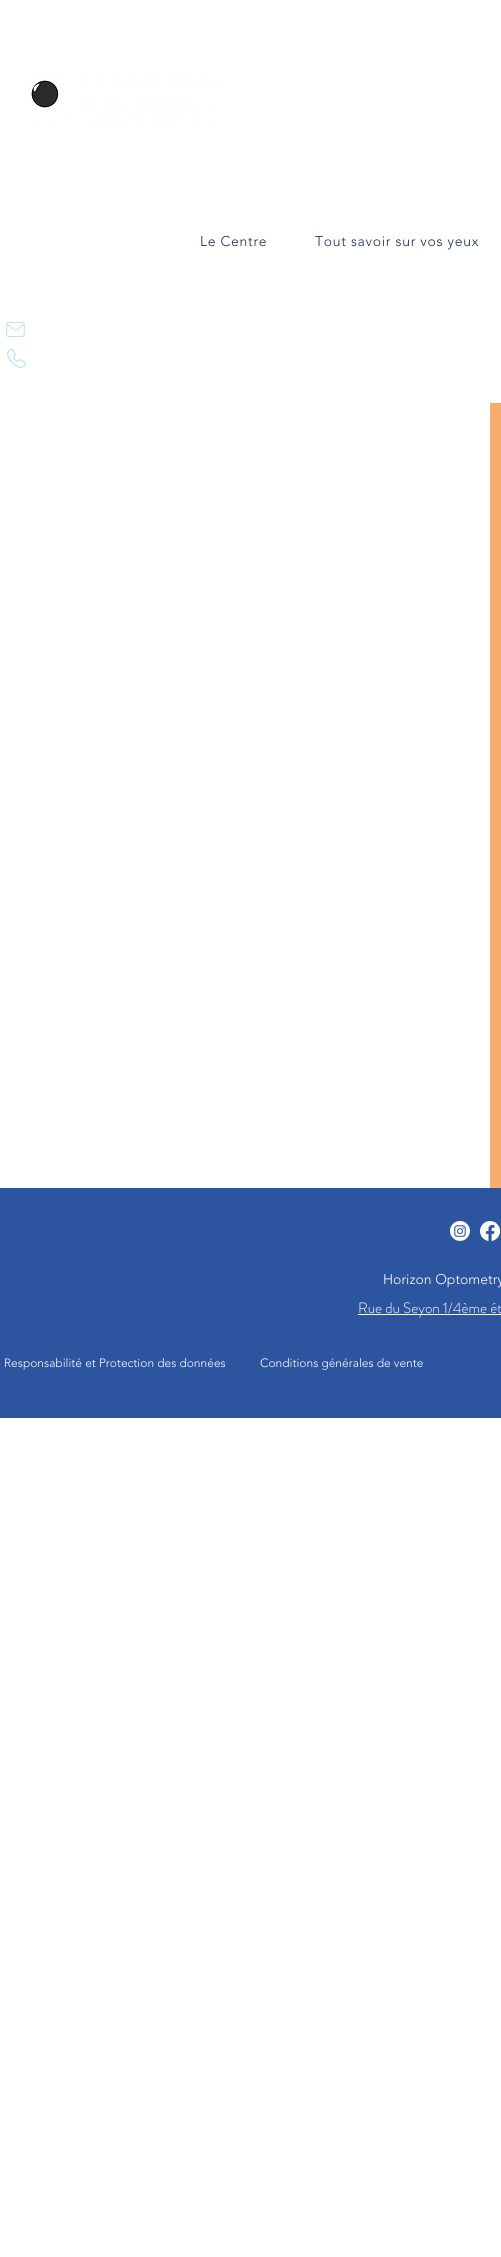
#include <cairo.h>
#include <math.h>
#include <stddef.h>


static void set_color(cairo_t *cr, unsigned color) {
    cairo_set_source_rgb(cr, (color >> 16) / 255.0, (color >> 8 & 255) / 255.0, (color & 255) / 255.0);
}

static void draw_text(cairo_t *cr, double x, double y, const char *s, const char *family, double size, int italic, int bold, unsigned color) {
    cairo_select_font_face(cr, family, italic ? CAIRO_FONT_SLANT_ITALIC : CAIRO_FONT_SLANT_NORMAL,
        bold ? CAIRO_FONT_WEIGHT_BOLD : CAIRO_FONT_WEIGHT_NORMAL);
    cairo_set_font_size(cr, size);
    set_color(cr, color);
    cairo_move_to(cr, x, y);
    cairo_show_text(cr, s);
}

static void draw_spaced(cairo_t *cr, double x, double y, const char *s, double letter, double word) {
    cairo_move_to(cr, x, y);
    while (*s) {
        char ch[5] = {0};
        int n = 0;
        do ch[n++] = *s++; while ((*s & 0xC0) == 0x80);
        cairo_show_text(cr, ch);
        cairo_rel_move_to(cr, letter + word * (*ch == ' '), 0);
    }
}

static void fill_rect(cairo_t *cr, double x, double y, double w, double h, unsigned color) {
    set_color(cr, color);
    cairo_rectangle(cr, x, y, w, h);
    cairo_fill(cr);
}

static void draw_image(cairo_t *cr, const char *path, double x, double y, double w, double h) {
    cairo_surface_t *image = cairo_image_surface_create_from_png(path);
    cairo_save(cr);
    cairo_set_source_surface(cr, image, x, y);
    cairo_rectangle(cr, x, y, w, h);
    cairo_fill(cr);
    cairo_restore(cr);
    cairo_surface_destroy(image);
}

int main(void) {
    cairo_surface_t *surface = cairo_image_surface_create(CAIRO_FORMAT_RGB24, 501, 2257);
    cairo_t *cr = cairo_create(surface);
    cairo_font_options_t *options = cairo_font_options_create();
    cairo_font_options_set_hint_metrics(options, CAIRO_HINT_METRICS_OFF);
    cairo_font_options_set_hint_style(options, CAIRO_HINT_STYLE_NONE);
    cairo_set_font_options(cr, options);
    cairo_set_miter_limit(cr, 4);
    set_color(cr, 0xFFFFFF);
    cairo_paint(cr);
    draw_image(cr, "assets/img1.png", 31, 73, 186, 49);
    cairo_select_font_face(cr, "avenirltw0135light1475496 Light", CAIRO_FONT_SLANT_NORMAL, CAIRO_FONT_WEIGHT_NORMAL);
    cairo_set_font_size(cr, 14);
    set_color(cr, 0x1D2D4E);
    draw_spaced(cr, 200, 246, "Le Centre", 0.7, 0);
    draw_spaced(cr, 315, 246, "Tout savoir sur vos yeux", 0.7, 0);
    draw_image(cr, "assets/img2.png", 6, 322, 19, 15);
    draw_image(cr, "assets/img3.png", 7, 349, 19, 19);
    fill_rect(cr, 490, 403, 11, 785, 0xF7AD6D);
    fill_rect(cr, 0, 1188, 501, 230, 0x2D549F);
    draw_image(cr, "assets/img4.png", 450, 1221, 20, 20);
    draw_image(cr, "assets/img5.png", 480, 1221, 20, 20);
    draw_text(cr, 383, 1284, "Horizon Optometry", "avenirltw0135light1475496 Light", 14, 0, 0, 0xFFFFFF);
    fill_rect(cr, 358, 1314, 143, 1, 0xFFFFFF);
    draw_text(cr, 358, 1313, "Rue du Seyon 1/4ème ét", "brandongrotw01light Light", 15, 0, 0, 0xFFFFFF);
    draw_text(cr, 4, 1367, "Responsabilité et Protection des données", "avenirltw0135light1475496 Light", 12, 0, 0, 0xFFFFFF);
    draw_text(cr, 260, 1367, "Conditions générales de vente", "avenirltw0135light1475496 Light", 12, 0, 0, 0xFFFFFF);
    cairo_surface_write_to_png(surface, "output.png");
    cairo_font_options_destroy(options);
    cairo_destroy(cr);
    cairo_surface_destroy(surface);
    return 0;
}
